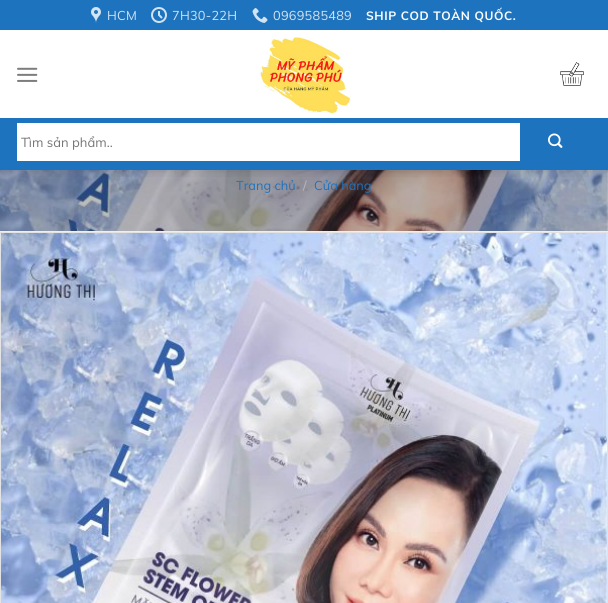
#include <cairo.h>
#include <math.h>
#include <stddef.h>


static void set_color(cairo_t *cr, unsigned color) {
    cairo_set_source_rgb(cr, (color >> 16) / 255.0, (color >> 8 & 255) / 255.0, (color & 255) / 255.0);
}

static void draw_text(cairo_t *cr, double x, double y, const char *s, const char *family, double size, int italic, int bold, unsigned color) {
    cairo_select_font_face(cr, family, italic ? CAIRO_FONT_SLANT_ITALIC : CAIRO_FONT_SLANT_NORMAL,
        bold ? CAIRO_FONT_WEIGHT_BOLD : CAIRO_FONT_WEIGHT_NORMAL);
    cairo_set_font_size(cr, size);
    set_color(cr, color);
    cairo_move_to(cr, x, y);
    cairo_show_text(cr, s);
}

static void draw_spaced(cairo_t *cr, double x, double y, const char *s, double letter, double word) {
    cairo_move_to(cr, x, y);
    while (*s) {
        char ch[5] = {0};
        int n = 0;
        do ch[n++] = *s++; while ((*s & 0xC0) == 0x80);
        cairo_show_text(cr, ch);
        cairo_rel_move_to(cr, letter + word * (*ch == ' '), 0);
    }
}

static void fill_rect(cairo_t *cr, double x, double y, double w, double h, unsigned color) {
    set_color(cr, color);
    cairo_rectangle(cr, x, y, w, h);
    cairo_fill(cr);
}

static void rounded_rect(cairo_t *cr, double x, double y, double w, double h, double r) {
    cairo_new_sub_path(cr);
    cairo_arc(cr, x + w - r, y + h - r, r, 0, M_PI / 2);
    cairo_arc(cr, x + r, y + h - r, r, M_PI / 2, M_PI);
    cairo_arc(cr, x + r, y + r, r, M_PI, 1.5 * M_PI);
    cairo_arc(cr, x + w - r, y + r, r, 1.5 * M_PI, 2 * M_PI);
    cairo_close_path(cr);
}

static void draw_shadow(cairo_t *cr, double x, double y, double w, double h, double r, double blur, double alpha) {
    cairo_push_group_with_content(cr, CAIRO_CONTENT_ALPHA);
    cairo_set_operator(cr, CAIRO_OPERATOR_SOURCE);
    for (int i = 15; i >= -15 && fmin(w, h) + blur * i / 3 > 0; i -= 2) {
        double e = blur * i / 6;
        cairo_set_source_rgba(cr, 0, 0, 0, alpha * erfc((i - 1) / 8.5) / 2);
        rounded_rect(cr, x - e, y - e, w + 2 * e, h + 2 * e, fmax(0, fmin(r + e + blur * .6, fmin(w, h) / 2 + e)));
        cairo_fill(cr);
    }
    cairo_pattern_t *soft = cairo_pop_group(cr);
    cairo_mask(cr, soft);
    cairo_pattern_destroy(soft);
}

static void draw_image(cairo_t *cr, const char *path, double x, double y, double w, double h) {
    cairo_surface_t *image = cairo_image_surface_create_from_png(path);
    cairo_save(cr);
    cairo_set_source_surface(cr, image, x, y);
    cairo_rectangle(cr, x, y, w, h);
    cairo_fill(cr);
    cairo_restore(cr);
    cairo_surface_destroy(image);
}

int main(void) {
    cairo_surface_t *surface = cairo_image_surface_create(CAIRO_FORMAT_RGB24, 608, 603);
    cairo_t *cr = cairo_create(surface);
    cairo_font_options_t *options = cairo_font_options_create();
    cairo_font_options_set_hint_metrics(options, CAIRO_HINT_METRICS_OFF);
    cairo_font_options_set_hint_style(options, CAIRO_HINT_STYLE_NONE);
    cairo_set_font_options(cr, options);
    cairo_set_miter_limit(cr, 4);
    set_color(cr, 0xFFFFFF);
    cairo_paint(cr);
    draw_image(cr, "assets/img8.png", 0, 170, 608, 61);
    cairo_save(cr);
    cairo_rectangle(cr, 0, 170, 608, 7);
    cairo_clip(cr);
    set_color(cr, 0x000000);
    draw_shadow(cr, 1, 1, 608, 170, 0, 5, 0.15);
    cairo_restore(cr);
    fill_rect(cr, 0, 0, 608, 30, 0x1E73BE);
    draw_image(cr, "assets/img1.png", 91, 7, 10, 16);
    cairo_select_font_face(cr, "Muli", CAIRO_FONT_SLANT_NORMAL, CAIRO_FONT_WEIGHT_NORMAL);
    cairo_set_font_size(cr, 12.75);
    set_color(cr, 0xD2E3F2);
    draw_spaced(cr, 107, 20, "HCM", 0.25, 0);
    draw_image(cr, "assets/img2.png", 151, 7, 16, 16);
    draw_spaced(cr, 172, 20, "7H30-22H", 0.25, 0);
    draw_image(cr, "assets/img3.png", 252, 8, 16, 15);
    draw_spaced(cr, 273, 20, "0969585489", 0.25, 0);
    cairo_select_font_face(cr, "Muli", CAIRO_FONT_SLANT_NORMAL, CAIRO_FONT_WEIGHT_BOLD);
    cairo_set_font_size(cr, 12);
    set_color(cr, 0xFFFFFF);
    draw_spaced(cr, 366, 20, "SHIP COD TOÀN QUỐC.", 0.6, 0);
    draw_image(cr, "assets/img4.png", 17, 67, 21, 15);
    draw_image(cr, "assets/img5.png", 259, 37, 93, 76);
    draw_image(cr, "assets/img6.png", 560, 62, 24, 24);
    fill_rect(cr, 0, 118, 608, 52, 0x1E73BE);
    fill_rect(cr, 17, 123, 503, 38, 0xFFFFFF);
    draw_text(cr, 21, 147, "Tìm sản phẩm..", "Muli", 13, 0, 0, 0x757575);
    draw_image(cr, "assets/img7.png", 548, 133, 15, 15);
    fill_rect(cr, 0, 231, 608, 1, 0xEEEEEE);
    draw_text(cr, 236, 190, "Trang chủ", "Muli", 12.75, 0, 0, 0x1E73BE);
    draw_text(cr, 303, 190, "/", "Muli", 12.75, 0, 0, 0xB8B7BE);
    draw_text(cr, 314, 190, "Cửa hàng", "Muli", 12.75, 0, 0, 0x1E73BE);
    cairo_rectangle(cr, 0.5, 232.5, 607, 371);
    set_color(cr, 0xE3E3E3);
    cairo_set_line_width(cr, 1);
    cairo_stroke(cr);
    draw_image(cr, "assets/img9.png", 1, 233, 606, 370);
    cairo_surface_write_to_png(surface, "output.png");
    cairo_font_options_destroy(options);
    cairo_destroy(cr);
    cairo_surface_destroy(surface);
    return 0;
}
